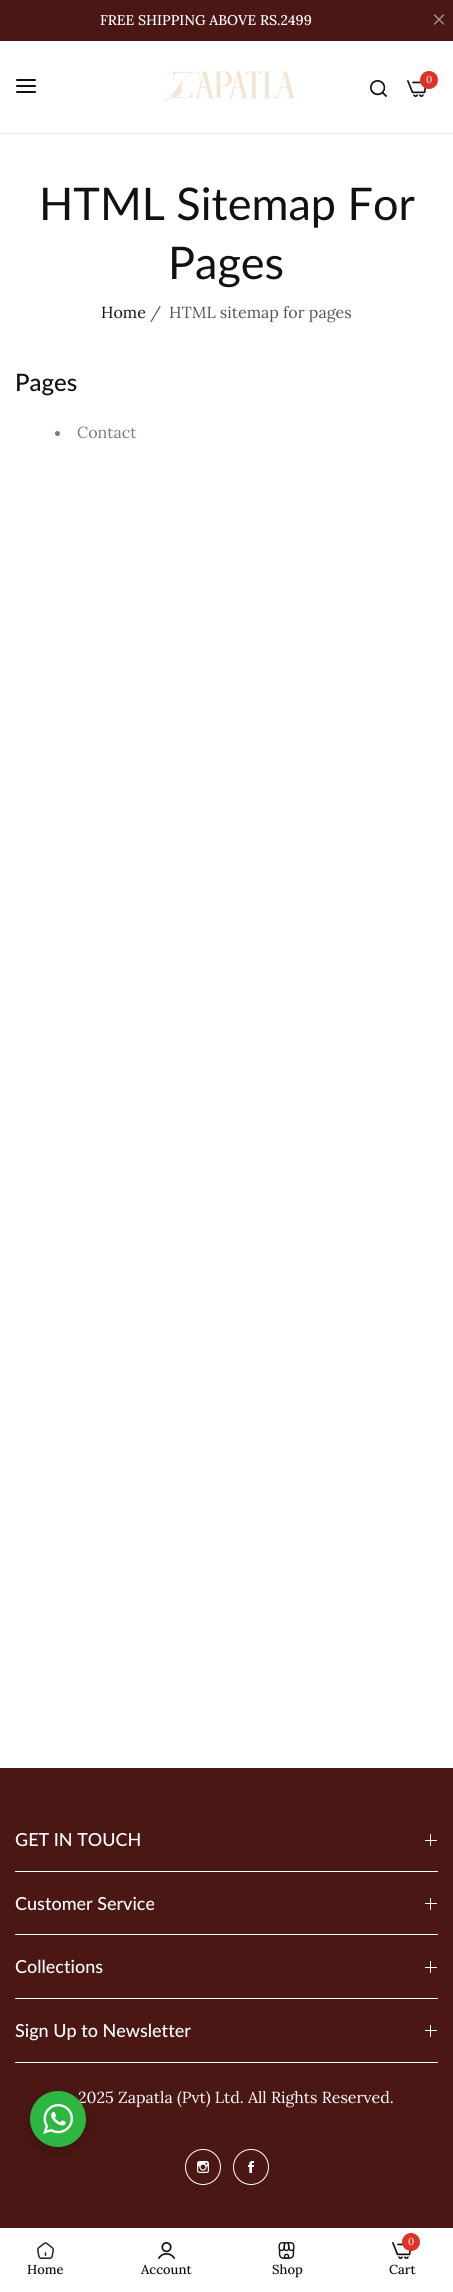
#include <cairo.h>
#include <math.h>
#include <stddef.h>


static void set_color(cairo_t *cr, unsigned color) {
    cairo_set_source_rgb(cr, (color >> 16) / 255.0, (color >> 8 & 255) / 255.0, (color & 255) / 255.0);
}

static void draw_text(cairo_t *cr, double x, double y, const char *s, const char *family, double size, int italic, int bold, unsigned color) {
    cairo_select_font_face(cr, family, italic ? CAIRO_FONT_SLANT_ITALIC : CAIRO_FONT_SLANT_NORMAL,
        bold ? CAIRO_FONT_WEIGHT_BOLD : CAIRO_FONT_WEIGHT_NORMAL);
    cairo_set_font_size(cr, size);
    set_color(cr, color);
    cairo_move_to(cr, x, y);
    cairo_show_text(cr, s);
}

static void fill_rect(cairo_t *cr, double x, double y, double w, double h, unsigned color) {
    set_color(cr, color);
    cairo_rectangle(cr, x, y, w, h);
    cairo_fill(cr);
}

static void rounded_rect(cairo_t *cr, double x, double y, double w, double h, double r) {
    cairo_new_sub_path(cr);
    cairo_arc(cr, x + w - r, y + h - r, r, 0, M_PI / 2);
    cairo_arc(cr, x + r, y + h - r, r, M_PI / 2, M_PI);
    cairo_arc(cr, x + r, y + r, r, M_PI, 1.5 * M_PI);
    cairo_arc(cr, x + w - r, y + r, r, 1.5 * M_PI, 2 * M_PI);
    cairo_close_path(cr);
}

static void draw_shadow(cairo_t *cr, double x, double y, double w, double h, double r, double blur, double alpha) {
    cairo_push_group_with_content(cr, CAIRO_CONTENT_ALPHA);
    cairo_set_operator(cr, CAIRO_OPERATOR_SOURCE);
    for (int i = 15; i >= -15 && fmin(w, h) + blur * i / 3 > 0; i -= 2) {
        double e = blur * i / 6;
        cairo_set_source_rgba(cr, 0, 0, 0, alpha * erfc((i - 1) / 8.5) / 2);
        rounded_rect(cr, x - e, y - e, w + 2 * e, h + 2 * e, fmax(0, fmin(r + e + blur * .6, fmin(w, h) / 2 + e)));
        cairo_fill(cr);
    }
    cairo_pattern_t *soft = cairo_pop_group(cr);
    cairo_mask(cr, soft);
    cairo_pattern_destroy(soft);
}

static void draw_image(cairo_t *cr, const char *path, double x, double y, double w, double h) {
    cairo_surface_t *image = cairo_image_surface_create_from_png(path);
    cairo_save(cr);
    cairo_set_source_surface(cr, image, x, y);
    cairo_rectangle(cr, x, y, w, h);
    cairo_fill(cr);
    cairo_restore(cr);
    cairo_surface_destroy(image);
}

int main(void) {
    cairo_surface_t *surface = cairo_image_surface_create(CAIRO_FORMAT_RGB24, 453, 2292);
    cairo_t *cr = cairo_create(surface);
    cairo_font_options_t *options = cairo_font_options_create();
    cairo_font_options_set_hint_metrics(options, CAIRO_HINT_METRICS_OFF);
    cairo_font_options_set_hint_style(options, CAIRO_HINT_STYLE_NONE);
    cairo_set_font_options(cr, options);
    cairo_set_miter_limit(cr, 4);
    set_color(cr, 0xFFFFFF);
    cairo_paint(cr);
    fill_rect(cr, 0, 0, 453, 41, 0x4B1714);
    draw_text(cr, 100, 25, "FREE SHIPPING ABOVE RS.2499", "Lora Medium", 14, 0, 0, 0xFFFFFF);
    draw_image(cr, "assets/img1.png", 433, 14, 12, 11);
    fill_rect(cr, 0, 133, 453, 1, 0xEBEBEB);
    draw_image(cr, "assets/img2.png", 16, 79, 20, 14);
    draw_image(cr, "assets/img3.png", 164, 71, 130, 32);
    draw_image(cr, "assets/img4.png", 370, 80, 17, 17);
    draw_image(cr, "assets/img5.png", 407, 80, 20, 17);
    set_color(cr, 0xDD3327);
    cairo_arc(cr, 429, 80, 9, 0, 2 * M_PI);
    cairo_fill(cr);
    draw_text(cr, 426, 83, "0", "Lora", 10, 0, 0, 0xFFFFFF);
    draw_text(cr, 39, 220, "HTML Sitemap For", "Lato", 45, 0, 0, 0x111111);
    draw_text(cr, 168, 279, "Pages", "Lato", 45, 0, 0, 0x111111);
    draw_text(cr, 101, 318, "Home", "Lora", 16, 0, 0, 0x111111);
    draw_text(cr, 150, 318, "/", "Lora", 16, 0, 0, 0x555555);
    draw_text(cr, 169, 318, "HTML sitemap for pages", "Lora", 16, 0, 0, 0x555555);
    draw_text(cr, 15, 391, "Pages", "Lato Medium", 24, 0, 0, 0x111111);
    set_color(cr, 0x7C7C7C);
    cairo_new_path(cr);
    cairo_arc(cr, 57.5, 433.5, 2.5, 0, 2 * M_PI);
    cairo_fill(cr);
    draw_text(cr, 77, 438, "Contact", "Lora", 16, 0, 0, 0x7C7C7C);
    fill_rect(cr, 0, 1768, 453, 460, 0x4B1714);
    draw_text(cr, 15, 1846, "GET IN TOUCH", "Lato Medium", 18, 0, 0, 0xFFFFFF);
    fill_rect(cr, 430, 1834, 1, 12, 0xFFFFFF);
    fill_rect(cr, 425, 1840, 12, 1, 0xFFFFFF);
    fill_rect(cr, 15, 1871, 423, 1, 0xFFFFFF);
    draw_text(cr, 15, 1910, "Customer Service", "Lato Medium", 18, 0, 0, 0xFFFFFF);
    fill_rect(cr, 430, 1898, 1, 12, 0xFFFFFF);
    fill_rect(cr, 425, 1903, 12, 1, 0xFFFFFF);
    fill_rect(cr, 15, 1934, 423, 1, 0xFFFFFF);
    draw_text(cr, 15, 1973, "Collections", "Lato Medium", 18, 0, 0, 0xFFFFFF);
    fill_rect(cr, 430, 1961, 1, 12, 0xFFFFFF);
    fill_rect(cr, 425, 1967, 12, 1, 0xFFFFFF);
    fill_rect(cr, 15, 1998, 423, 1, 0xFFFFFF);
    draw_text(cr, 15, 2037, "Sign Up to Newsletter", "Lato Medium", 18, 0, 0, 0xFFFFFF);
    fill_rect(cr, 430, 2025, 1, 12, 0xFFFFFF);
    fill_rect(cr, 425, 2030, 12, 1, 0xFFFFFF);
    fill_rect(cr, 15, 2062, 423, 1, 0xFFFFFF);
    draw_text(cr, 78, 2103, "2025 Zapatla (Pvt) Ltd. All Rights Reserved.", "Lora", 16, 0, 0, 0xFFFFFF);
    draw_image(cr, "assets/img6.png", 185, 2149, 36, 36);
    draw_image(cr, "assets/img7.png", 233, 2149, 36, 36);
    set_color(cr, 0x000000);
    draw_shadow(cr, 0, 2233, 453, 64, 0, 15, 0.06);
    fill_rect(cr, 0, 2228, 453, 64, 0xFFFFFF);
    draw_image(cr, "assets/img8.png", 37, 2242, 17, 17);
    draw_text(cr, 27, 2274, "Home", "Lora Medium", 13, 0, 0, 0x111111);
    draw_image(cr, "assets/img9.png", 158, 2242, 17, 17);
    draw_text(cr, 141, 2274, "Account", "Lora Medium", 13, 0, 0, 0x111111);
    draw_image(cr, "assets/img10.png", 278, 2242, 17, 17);
    draw_text(cr, 272, 2274, "Shop", "Lora Medium", 13, 0, 0, 0x111111);
    draw_image(cr, "assets/img5.png", 392, 2242, 20, 17);
    set_color(cr, 0xDD3327);
    cairo_arc(cr, 411, 2242, 9, 0, 2 * M_PI);
    cairo_fill(cr);
    draw_text(cr, 408, 2245, "0", "Lora", 10, 0, 0, 0xFFFFFF);
    draw_text(cr, 389, 2274, "Cart", "Lora Medium", 13, 0, 0, 0x111111);
    set_color(cr, 0x000000);
    draw_shadow(cr, 28, 2095, 60, 60, 30, 4, 0.14);
    set_color(cr, 0x2DB742);
    cairo_arc(cr, 58, 2119, 28, 0, 2 * M_PI);
    cairo_fill(cr);
    draw_image(cr, "assets/img11.png", 43, 2104, 30, 30);
    cairo_surface_write_to_png(surface, "output.png");
    cairo_font_options_destroy(options);
    cairo_destroy(cr);
    cairo_surface_destroy(surface);
    return 0;
}
